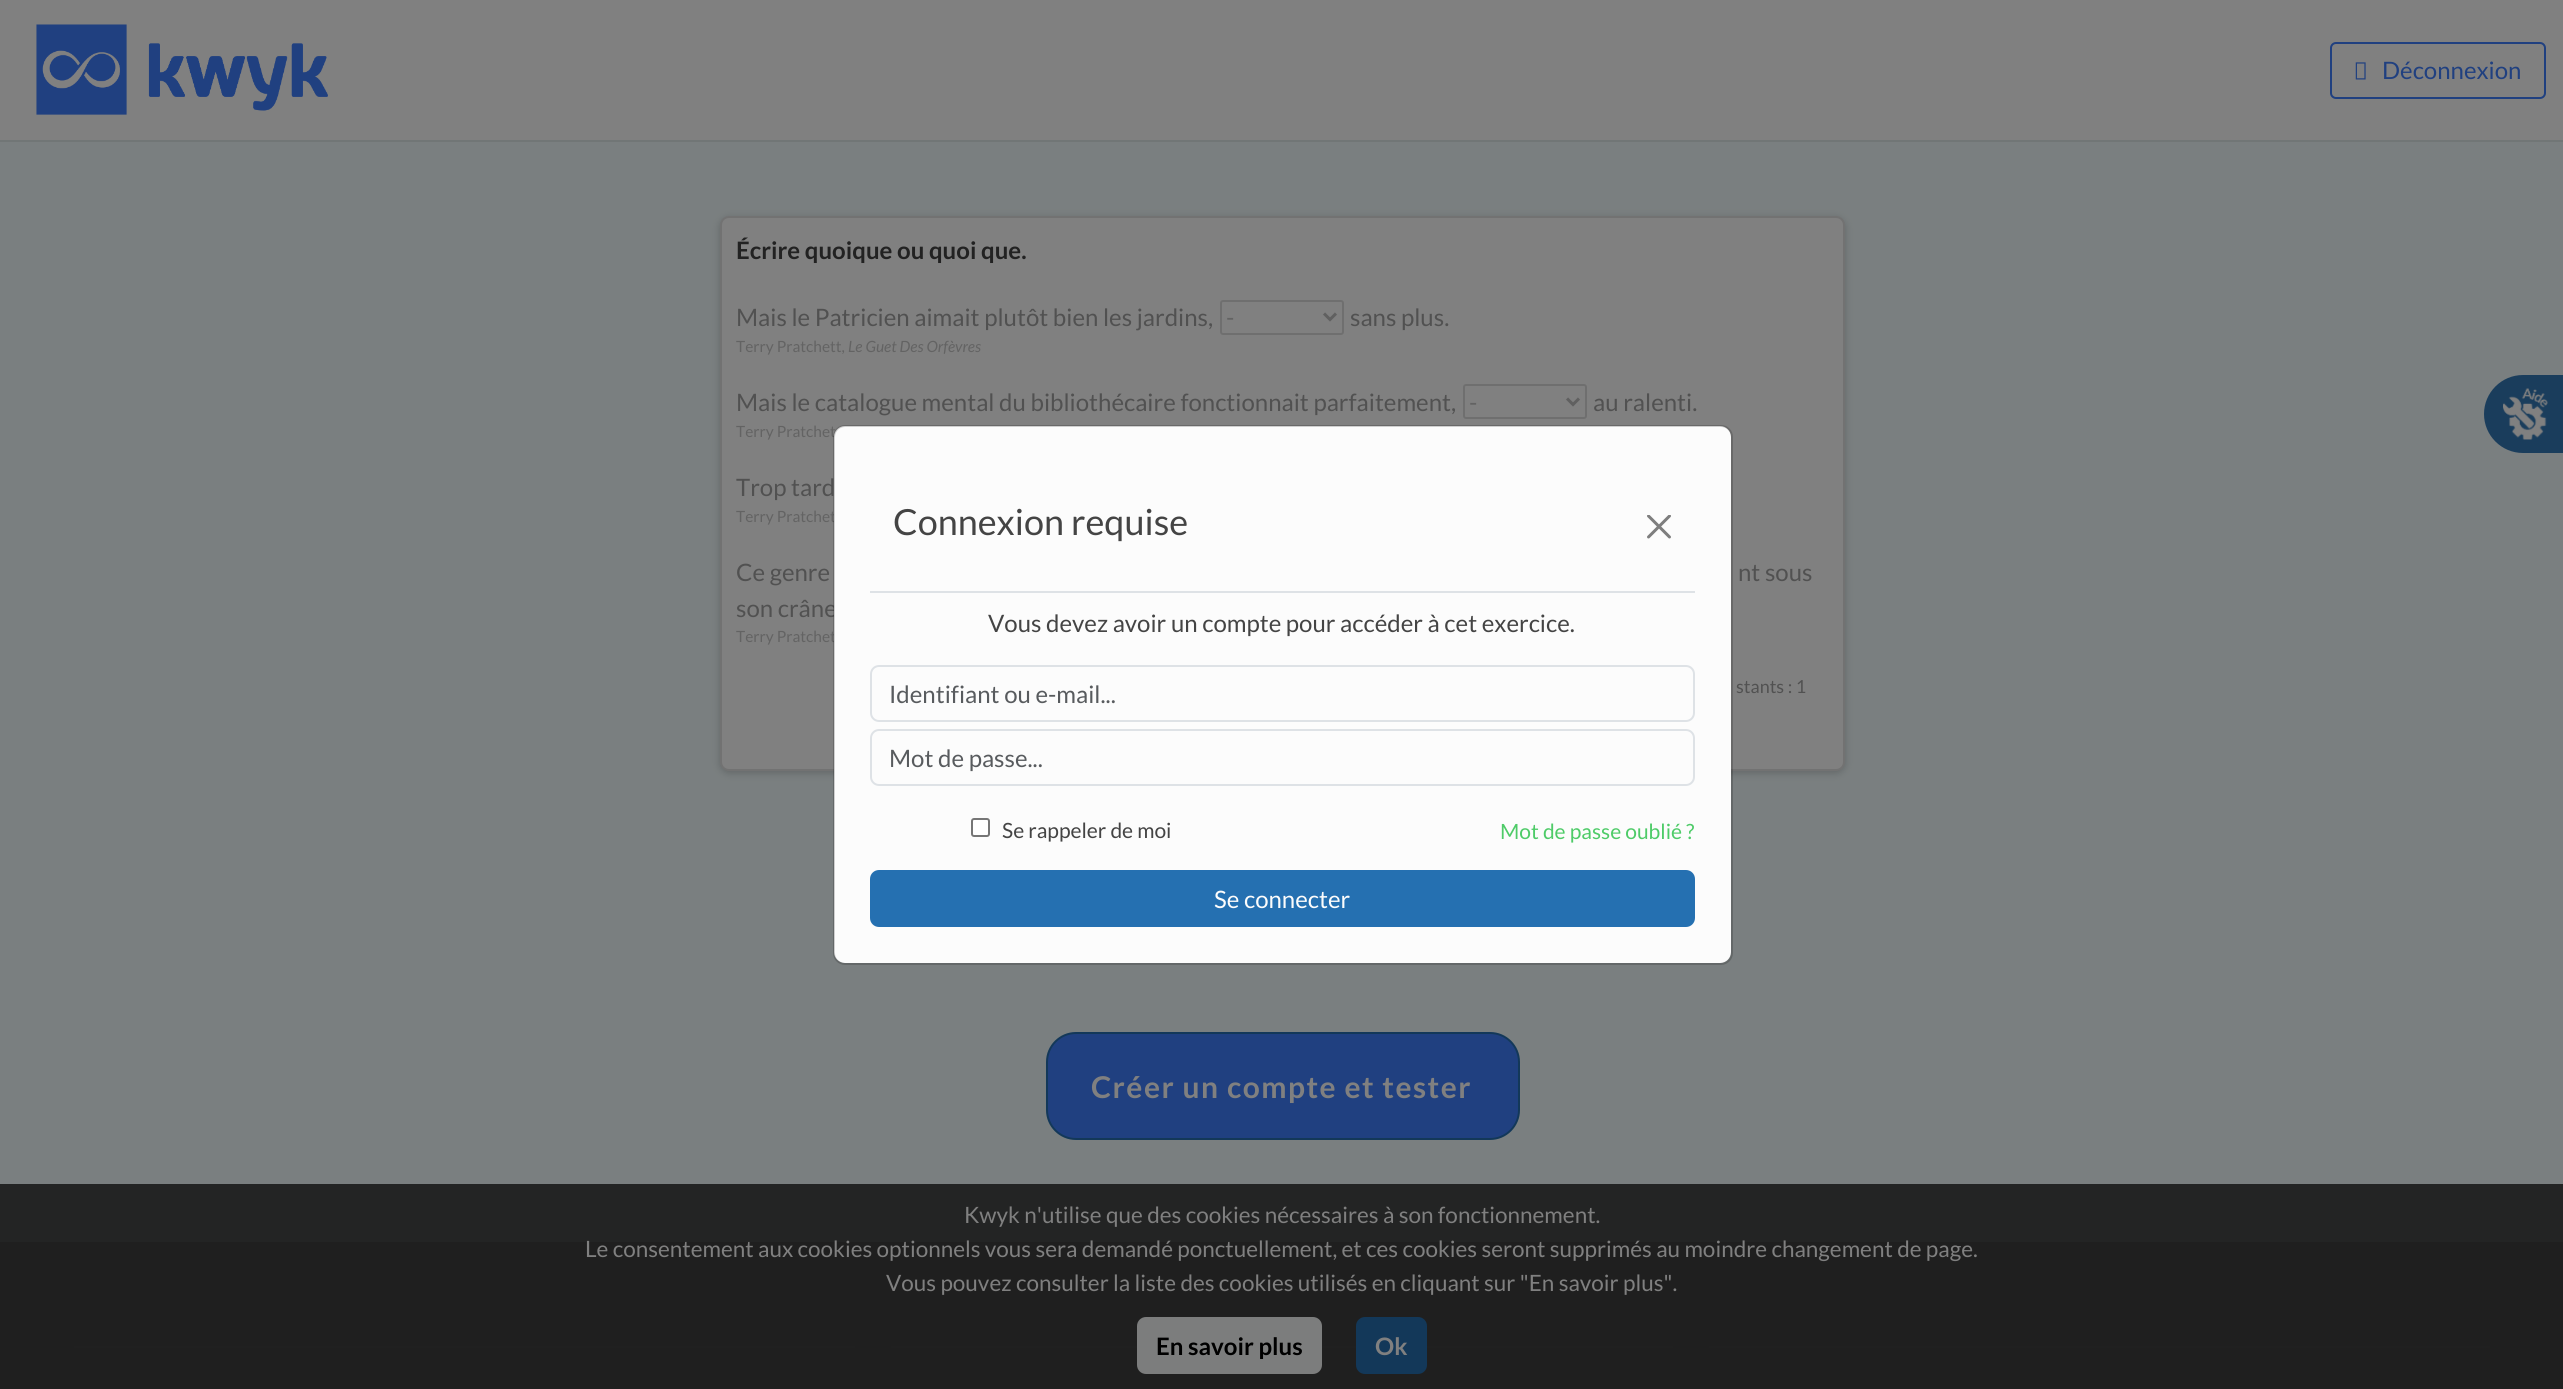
#include <cairo.h>
#include <math.h>
#include <stddef.h>


static void set_color(cairo_t *cr, unsigned color) {
    cairo_set_source_rgb(cr, (color >> 16) / 255.0, (color >> 8 & 255) / 255.0, (color & 255) / 255.0);
}

static void draw_text(cairo_t *cr, double x, double y, const char *s, const char *family, double size, int italic, int bold, unsigned color) {
    cairo_select_font_face(cr, family, italic ? CAIRO_FONT_SLANT_ITALIC : CAIRO_FONT_SLANT_NORMAL,
        bold ? CAIRO_FONT_WEIGHT_BOLD : CAIRO_FONT_WEIGHT_NORMAL);
    cairo_set_font_size(cr, size);
    set_color(cr, color);
    cairo_move_to(cr, x, y);
    cairo_show_text(cr, s);
}

static void draw_spaced(cairo_t *cr, double x, double y, const char *s, double letter, double word) {
    cairo_move_to(cr, x, y);
    while (*s) {
        char ch[5] = {0};
        int n = 0;
        do ch[n++] = *s++; while ((*s & 0xC0) == 0x80);
        cairo_show_text(cr, ch);
        cairo_rel_move_to(cr, letter + word * (*ch == ' '), 0);
    }
}

static void fill_rect(cairo_t *cr, double x, double y, double w, double h, unsigned color) {
    set_color(cr, color);
    cairo_rectangle(cr, x, y, w, h);
    cairo_fill(cr);
}

static void rounded_rect(cairo_t *cr, double x, double y, double w, double h, double r) {
    cairo_new_sub_path(cr);
    cairo_arc(cr, x + w - r, y + h - r, r, 0, M_PI / 2);
    cairo_arc(cr, x + r, y + h - r, r, M_PI / 2, M_PI);
    cairo_arc(cr, x + r, y + r, r, M_PI, 1.5 * M_PI);
    cairo_arc(cr, x + w - r, y + r, r, 1.5 * M_PI, 2 * M_PI);
    cairo_close_path(cr);
}

static void draw_shadow(cairo_t *cr, double x, double y, double w, double h, double r, double blur, double alpha) {
    cairo_push_group_with_content(cr, CAIRO_CONTENT_ALPHA);
    cairo_set_operator(cr, CAIRO_OPERATOR_SOURCE);
    for (int i = 15; i >= -15 && fmin(w, h) + blur * i / 3 > 0; i -= 2) {
        double e = blur * i / 6;
        cairo_set_source_rgba(cr, 0, 0, 0, alpha * erfc((i - 1) / 8.5) / 2);
        rounded_rect(cr, x - e, y - e, w + 2 * e, h + 2 * e, fmax(0, fmin(r + e + blur * .6, fmin(w, h) / 2 + e)));
        cairo_fill(cr);
    }
    cairo_pattern_t *soft = cairo_pop_group(cr);
    cairo_mask(cr, soft);
    cairo_pattern_destroy(soft);
}

static void draw_image(cairo_t *cr, const char *path, double x, double y, double w, double h) {
    cairo_surface_t *image = cairo_image_surface_create_from_png(path);
    cairo_save(cr);
    cairo_set_source_surface(cr, image, x, y);
    cairo_rectangle(cr, x, y, w, h);
    cairo_fill(cr);
    cairo_restore(cr);
    cairo_surface_destroy(image);
}

int main(void) {
    cairo_surface_t *surface = cairo_image_surface_create(CAIRO_FORMAT_RGB24, 2563, 1389);
    cairo_t *cr = cairo_create(surface);
    cairo_font_options_t *options = cairo_font_options_create();
    cairo_font_options_set_hint_metrics(options, CAIRO_HINT_METRICS_OFF);
    cairo_font_options_set_hint_style(options, CAIRO_HINT_STYLE_NONE);
    cairo_set_font_options(cr, options);
    cairo_set_miter_limit(cr, 4);
    set_color(cr, 0x7A7F80);
    cairo_paint(cr);
    fill_rect(cr, 0, 0, 2563, 140, 0x808080);
    draw_image(cr, "assets/img1.png", 36, 24, 292, 91);
    rounded_rect(cr, 2331, 43, 214, 55, 5);
    set_color(cr, 0x204080);
    cairo_stroke(cr);
    draw_image(cr, "assets/img2.png", 2355, 62, 11, 18);
    draw_text(cr, 2382, 79, "Déconnexion", "Lato", 24, 0, 0, 0x204080);
    fill_rect(cr, 0, 140, 2563, 2, 0x717676);
    set_color(cr, 0x000000);
    draw_shadow(cr, 720, 218, 1125, 555, 9, 4, 0.2);
    set_color(cr, 0x808080);
    rounded_rect(cr, 721, 217, 1123, 553, 8);
    cairo_fill_preserve(cr);
    set_color(cr, 0x727272);
    cairo_stroke(cr);
    draw_text(cr, 736, 259, "Écrire quoique ou quoi que.", "Lato", 24, 0, 1, 0x222222);
    draw_text(cr, 736, 326, "Mais le Patricien aimait plutôt bien les jardins,", "Lato", 24, 0, 0, 0x515151);
    rounded_rect(cr, 1221, 301, 122, 33, 2);
    set_color(cr, 0x6F6F6F);
    cairo_stroke(cr);
    cairo_new_path(cr);
    cairo_move_to(cr, 1324, 313.5);
    cairo_line_to(cr, 1330, 319.5);
    cairo_line_to(cr, 1336, 313.5);
    set_color(cr, 0x606060);
    cairo_set_line_width(cr, 3);
    cairo_stroke(cr);
    draw_text(cr, 1226, 326, "-", "Lato", 24, 0, 0, 0x636363);
    draw_text(cr, 1350, 326, "sans plus.", "Lato", 24, 0, 0, 0x515151);
    draw_text(cr, 736, 352, "Terry Pratchett,", "Lato", 15.5, 0, 0, 0x636363);
    draw_text(cr, 848, 352, "Le Guet Des Orfèvres", "Lato", 15.5, 1, 0, 0x636363);
    draw_text(cr, 736, 411, "Mais le catalogue mental du bibliothécaire fonctionnait parfaitement,", "Lato", 24, 0, 0, 0x515151);
    rounded_rect(cr, 1464, 385, 122, 33, 2);
    set_color(cr, 0x6F6F6F);
    cairo_set_line_width(cr, 2);
    cairo_stroke(cr);
    cairo_new_path(cr);
    cairo_move_to(cr, 1567, 398.5);
    cairo_line_to(cr, 1573, 404.5);
    cairo_line_to(cr, 1579, 398.5);
    set_color(cr, 0x606060);
    cairo_set_line_width(cr, 3);
    cairo_stroke(cr);
    draw_text(cr, 1469, 411, "-", "Lato", 24, 0, 0, 0x636363);
    draw_text(cr, 1593, 411, "au ralenti.", "Lato", 24, 0, 0, 0x515151);
    draw_text(cr, 736, 437, "Terry Pratchet", "Lato", 15.5, 0, 0, 0x636363);
    draw_text(cr, 736, 496, "Trop tard", "Lato", 24, 0, 0, 0x515151);
    draw_text(cr, 736, 522, "Terry Pratchet", "Lato", 15.5, 0, 0, 0x636363);
    draw_text(cr, 736, 581, "Ce genre", "Lato", 24, 0, 0, 0x515151);
    draw_text(cr, 1738, 581, "nt sous", "Lato", 24, 0, 0, 0x515151);
    draw_text(cr, 736, 617, "son crâne", "Lato", 24, 0, 0, 0x515151);
    draw_text(cr, 736, 642, "Terry Pratchet", "Lato", 15.5, 0, 0, 0x636363);
    draw_text(cr, 1736, 693, "stants : 1", "Lato", 18, 0, 0, 0x515151);
    set_color(cr, 0xFCFCFC);
    rounded_rect(cr, 834, 426, 897, 537, 11);
    cairo_fill(cr);
    rounded_rect(cr, 834, 426, 898, 538, 11);
    cairo_set_source_rgba(cr, 0, 0, 0, 0.18);
    cairo_set_line_width(cr, 2);
    cairo_stroke(cr);
    fill_rect(cr, 870, 591, 825, 2, 0xDEE2E6);
    draw_text(cr, 893, 535, "Connexion requise", "Lato", 36, 0, 0, 0x444444);
    draw_image(cr, "assets/img3.png", 1647, 515, 24, 24);
    draw_text(cr, 988, 632, "Vous devez avoir un compte pour accéder à cet exercice.", "Lato", 24, 0, 0, 0x444444);
    rounded_rect(cr, 871, 666, 823, 55, 8);
    set_color(cr, 0xDEE2E6);
    cairo_stroke(cr);
    draw_text(cr, 889, 703, "Identifiant ou e-mail...", "Lato", 24, 0, 0, 0x585B5E);
    rounded_rect(cr, 871, 730, 823, 55, 8);
    set_color(cr, 0xDEE2E6);
    cairo_stroke(cr);
    draw_text(cr, 889, 767, "Mot de passe...", "Lato", 24, 0, 0, 0x585B5E);
    set_color(cr, 0xFFFFFF);
    rounded_rect(cr, 972, 819, 17, 17, 2);
    cairo_fill_preserve(cr);
    set_color(cr, 0x767676);
    cairo_stroke(cr);
    draw_text(cr, 1002, 838, "Se rappeler de moi", "Lato", 21, 0, 0, 0x444444);
    draw_text(cr, 1500, 839, "Mot de passe oublié ?", "Lato", 21, 0, 0, 0x4ECB68);
    set_color(cr, 0x2570B1);
    rounded_rect(cr, 871, 871, 823, 55, 8);
    cairo_fill_preserve(cr);
    cairo_stroke(cr);
    draw_text(cr, 1214, 908, "Se connecter", "Lato", 24, 0, 0, 0xFCFCFC);
    set_color(cr, 0x204080);
    rounded_rect(cr, 1047, 1033, 472, 106, 29);
    cairo_fill_preserve(cr);
    set_color(cr, 0x133859);
    cairo_stroke(cr);
    cairo_select_font_face(cr, "Lato", CAIRO_FONT_SLANT_NORMAL, CAIRO_FONT_WEIGHT_BOLD);
    cairo_set_font_size(cr, 30);
    set_color(cr, 0x808080);
    draw_spaced(cr, 1091, 1098, "Créer un compte et tester", 1.5, 0);
    set_color(cr, 0x1A3D5C);
    cairo_new_path(cr);
    cairo_move_to(cr, 2523, 375);
    cairo_line_to(cr, 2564, 375);
    cairo_line_to(cr, 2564, 453);
    cairo_line_to(cr, 2523, 453);
    cairo_curve_to(cr, 2501.5, 453, 2484, 435.5, 2484, 414);
    cairo_curve_to(cr, 2484, 392.5, 2501.5, 375, 2523, 375);
    cairo_close_path(cr);
    cairo_fill(cr);
    draw_image(cr, "assets/img4.png", 2503, 388, 45, 52);
    fill_rect(cr, 0, 1242, 2563, 147, 0x606060);
    fill_rect(cr, 74, 1346, 781, 2, 0x636363);
    fill_rect(cr, 891, 1346, 782, 2, 0x636363);
    fill_rect(cr, 1709, 1346, 781, 2, 0x636363);
    cairo_set_source_rgba(cr, 0.082, 0.082, 0.082, 0.85);
    cairo_rectangle(cr, 0, 1184, 2563, 205);
    cairo_fill(cr);
    draw_text(cr, 964, 1223, "Kwyk n'utilise que des cookies nécessaires à son fonctionnement.", "Lato", 22.5, 0, 0, 0x808080);
    draw_text(cr, 585, 1257, "Le consentement aux cookies optionnels vous sera demandé ponctuellement, et ces cookies seront supprimés au moindre changement de page.", "Lato", 22.5, 0, 0, 0x808080);
    draw_text(cr, 886, 1291, "Vous pouvez consulter la liste des cookies utilisés en cliquant sur \"En savoir plus\".", "Lato", 22.5, 0, 0, 0x808080);
    set_color(cr, 0x7C7D7D);
    rounded_rect(cr, 1138, 1318, 183, 55, 8);
    cairo_fill_preserve(cr);
    cairo_stroke(cr);
    draw_text(cr, 1156, 1355, "En savoir plus", "Lato", 24, 0, 1, 0x000000);
    set_color(cr, 0x133859);
    rounded_rect(cr, 1357, 1318, 69, 55, 8);
    cairo_fill_preserve(cr);
    cairo_stroke(cr);
    draw_text(cr, 1375, 1355, "Ok", "Lato", 24, 0, 1, 0x808080);
    cairo_surface_write_to_png(surface, "output.png");
    cairo_font_options_destroy(options);
    cairo_destroy(cr);
    cairo_surface_destroy(surface);
    return 0;
}
